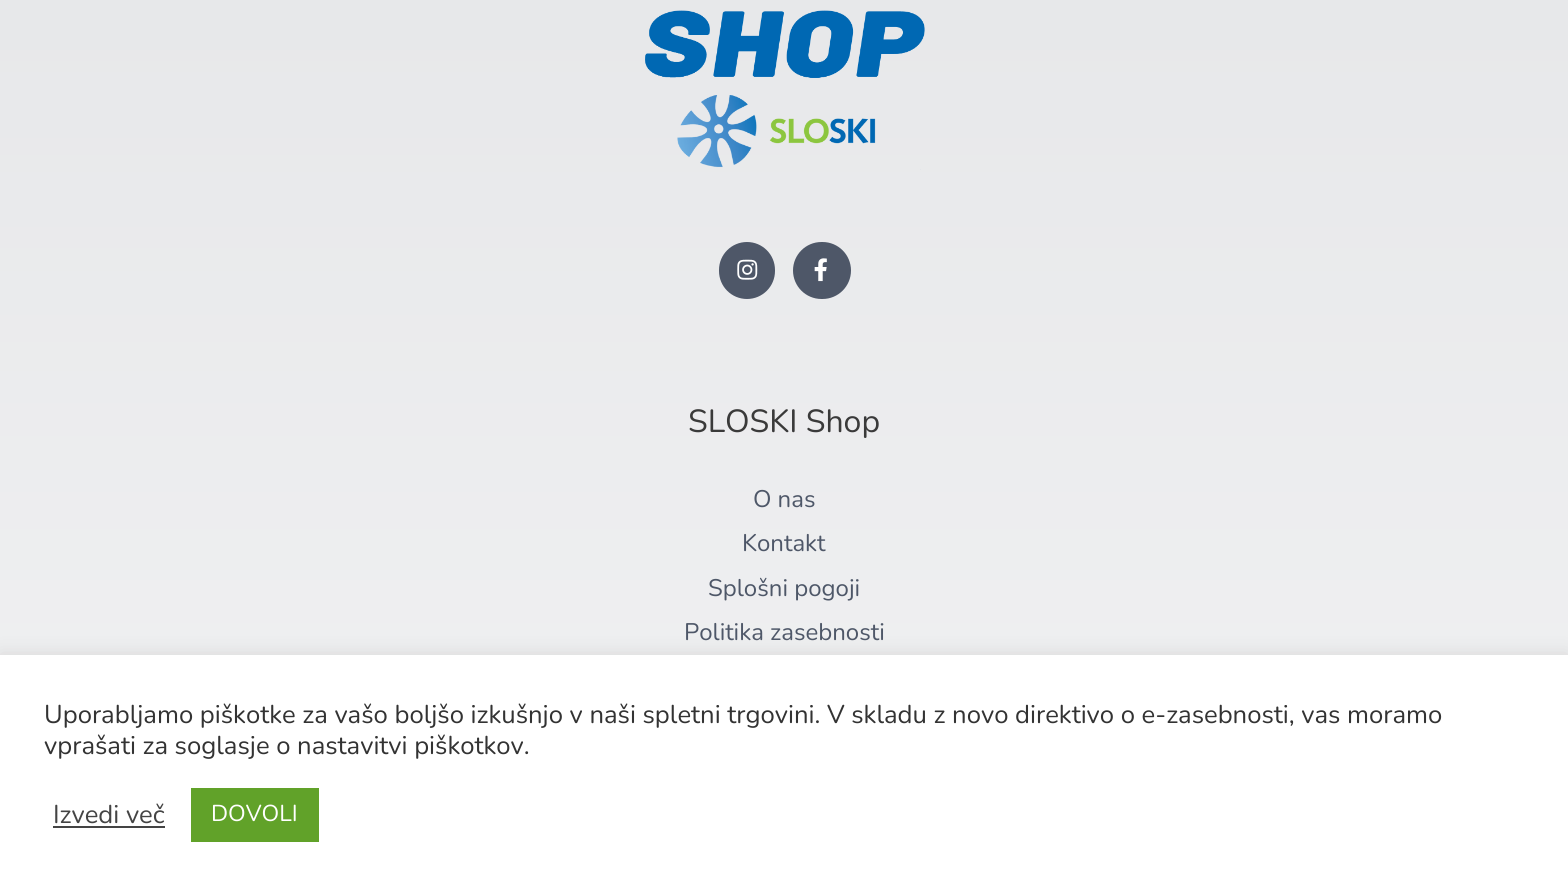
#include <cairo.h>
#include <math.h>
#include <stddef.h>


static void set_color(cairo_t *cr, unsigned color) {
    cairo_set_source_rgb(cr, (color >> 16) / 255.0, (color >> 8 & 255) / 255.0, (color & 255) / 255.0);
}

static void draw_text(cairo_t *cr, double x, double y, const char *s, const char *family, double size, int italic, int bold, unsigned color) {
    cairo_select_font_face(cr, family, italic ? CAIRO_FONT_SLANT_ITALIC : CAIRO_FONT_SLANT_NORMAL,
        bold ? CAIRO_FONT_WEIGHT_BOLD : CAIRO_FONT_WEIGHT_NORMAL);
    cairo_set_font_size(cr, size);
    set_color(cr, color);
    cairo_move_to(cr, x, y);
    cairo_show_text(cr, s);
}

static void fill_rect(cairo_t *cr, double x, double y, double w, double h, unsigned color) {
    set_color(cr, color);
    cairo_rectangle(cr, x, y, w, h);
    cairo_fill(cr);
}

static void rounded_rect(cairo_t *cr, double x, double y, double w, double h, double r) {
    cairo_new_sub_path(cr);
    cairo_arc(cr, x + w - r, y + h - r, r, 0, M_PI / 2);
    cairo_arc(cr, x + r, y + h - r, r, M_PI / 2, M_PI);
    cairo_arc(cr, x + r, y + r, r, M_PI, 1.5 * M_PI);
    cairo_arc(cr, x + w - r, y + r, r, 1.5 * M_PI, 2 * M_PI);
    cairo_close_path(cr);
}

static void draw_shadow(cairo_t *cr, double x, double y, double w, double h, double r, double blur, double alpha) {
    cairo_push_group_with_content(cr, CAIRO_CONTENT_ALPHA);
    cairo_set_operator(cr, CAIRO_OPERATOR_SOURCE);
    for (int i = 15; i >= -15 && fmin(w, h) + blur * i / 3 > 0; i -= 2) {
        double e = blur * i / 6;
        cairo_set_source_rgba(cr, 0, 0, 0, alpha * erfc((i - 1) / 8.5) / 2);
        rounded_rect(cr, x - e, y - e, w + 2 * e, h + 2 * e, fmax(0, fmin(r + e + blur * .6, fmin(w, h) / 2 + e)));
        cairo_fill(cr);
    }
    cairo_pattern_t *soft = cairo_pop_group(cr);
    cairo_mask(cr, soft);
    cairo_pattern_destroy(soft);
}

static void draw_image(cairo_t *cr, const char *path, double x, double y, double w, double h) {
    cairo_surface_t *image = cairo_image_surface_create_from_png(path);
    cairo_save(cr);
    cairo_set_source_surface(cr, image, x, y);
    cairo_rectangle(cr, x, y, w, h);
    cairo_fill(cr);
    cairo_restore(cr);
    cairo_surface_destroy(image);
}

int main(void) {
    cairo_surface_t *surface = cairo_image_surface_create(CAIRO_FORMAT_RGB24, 1568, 893);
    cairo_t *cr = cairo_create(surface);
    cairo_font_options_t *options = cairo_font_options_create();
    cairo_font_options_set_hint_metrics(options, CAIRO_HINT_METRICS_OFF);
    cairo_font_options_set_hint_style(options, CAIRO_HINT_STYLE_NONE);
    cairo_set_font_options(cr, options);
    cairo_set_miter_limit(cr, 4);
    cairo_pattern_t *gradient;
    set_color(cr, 0xFFFFFF);
    cairo_paint(cr);
    gradient = cairo_pattern_create_linear(784, -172, 784, 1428);
    cairo_pattern_add_color_stop_rgba(gradient, 0, 0.898, 0.902, 0.91, 1);
    cairo_pattern_add_color_stop_rgba(gradient, 1, 0.969, 0.969, 0.973, 1);
    cairo_set_source(cr, gradient);
    cairo_pattern_destroy(gradient);
    cairo_rectangle(cr, 0, 0, 1568, 655);
    cairo_fill(cr);
    draw_image(cr, "assets/img1.png", 645, 10, 280, 160);
    set_color(cr, 0x4E5768);
    rounded_rect(cr, 719, 242, 56, 57, 28);
    cairo_fill(cr);
    draw_image(cr, "assets/img2.png", 737, 259, 21, 21);
    rounded_rect(cr, 793, 242, 58, 57, 28.5);
    cairo_fill(cr);
    draw_image(cr, "assets/img3.png", 814, 258, 13, 24);
    draw_text(cr, 688, 432, "SLOSKI Shop", "Nunito ExtraLight", 32, 0, 0, 0x3A3A3A);
    draw_text(cr, 753, 507, "O nas", "Nunito ExtraLight", 24, 0, 0, 0x4E5768);
    draw_text(cr, 742, 551, "Kontakt", "Nunito ExtraLight", 24, 0, 0, 0x4E5768);
    draw_text(cr, 708, 596, "Splošni pogoji", "Nunito ExtraLight", 24, 0, 0, 0x4E5768);
    draw_text(cr, 684, 640, "Politika zasebnosti", "Nunito ExtraLight", 24, 0, 0, 0x4E5768);
    set_color(cr, 0xACABAB);
    draw_shadow(cr, 0, 653, 1568, 240, 0, 9, 0.3);
    fill_rect(cr, 0, 655, 1568, 238, 0xFFFFFF);
    draw_text(cr, 44, 723, "Uporabljamo piškotke za vašo boljšo izkušnjo v naši spletni trgovini. V skladu z novo direktivo o e-zasebnosti, vas moramo", "Nunito ExtraLight", 25.67, 0, 0, 0x333333);
    draw_text(cr, 44, 754, "vprašati za soglasje o nastavitvi piškotkov.", "Nunito ExtraLight", 25.67, 0, 0, 0x333333);
    draw_text(cr, 53, 823, "Izvedi več", "Nunito ExtraLight", 25.67, 0, 0, 0x444444);
    fill_rect(cr, 53, 826, 112, 2, 0x444444);
    fill_rect(cr, 191, 788, 128, 54, 0x61A229);
    draw_text(cr, 211, 821, "DOVOLI", "Nunito ExtraLight", 23, 0, 0, 0xFFFFFF);
    cairo_surface_write_to_png(surface, "output.png");
    cairo_font_options_destroy(options);
    cairo_destroy(cr);
    cairo_surface_destroy(surface);
    return 0;
}
